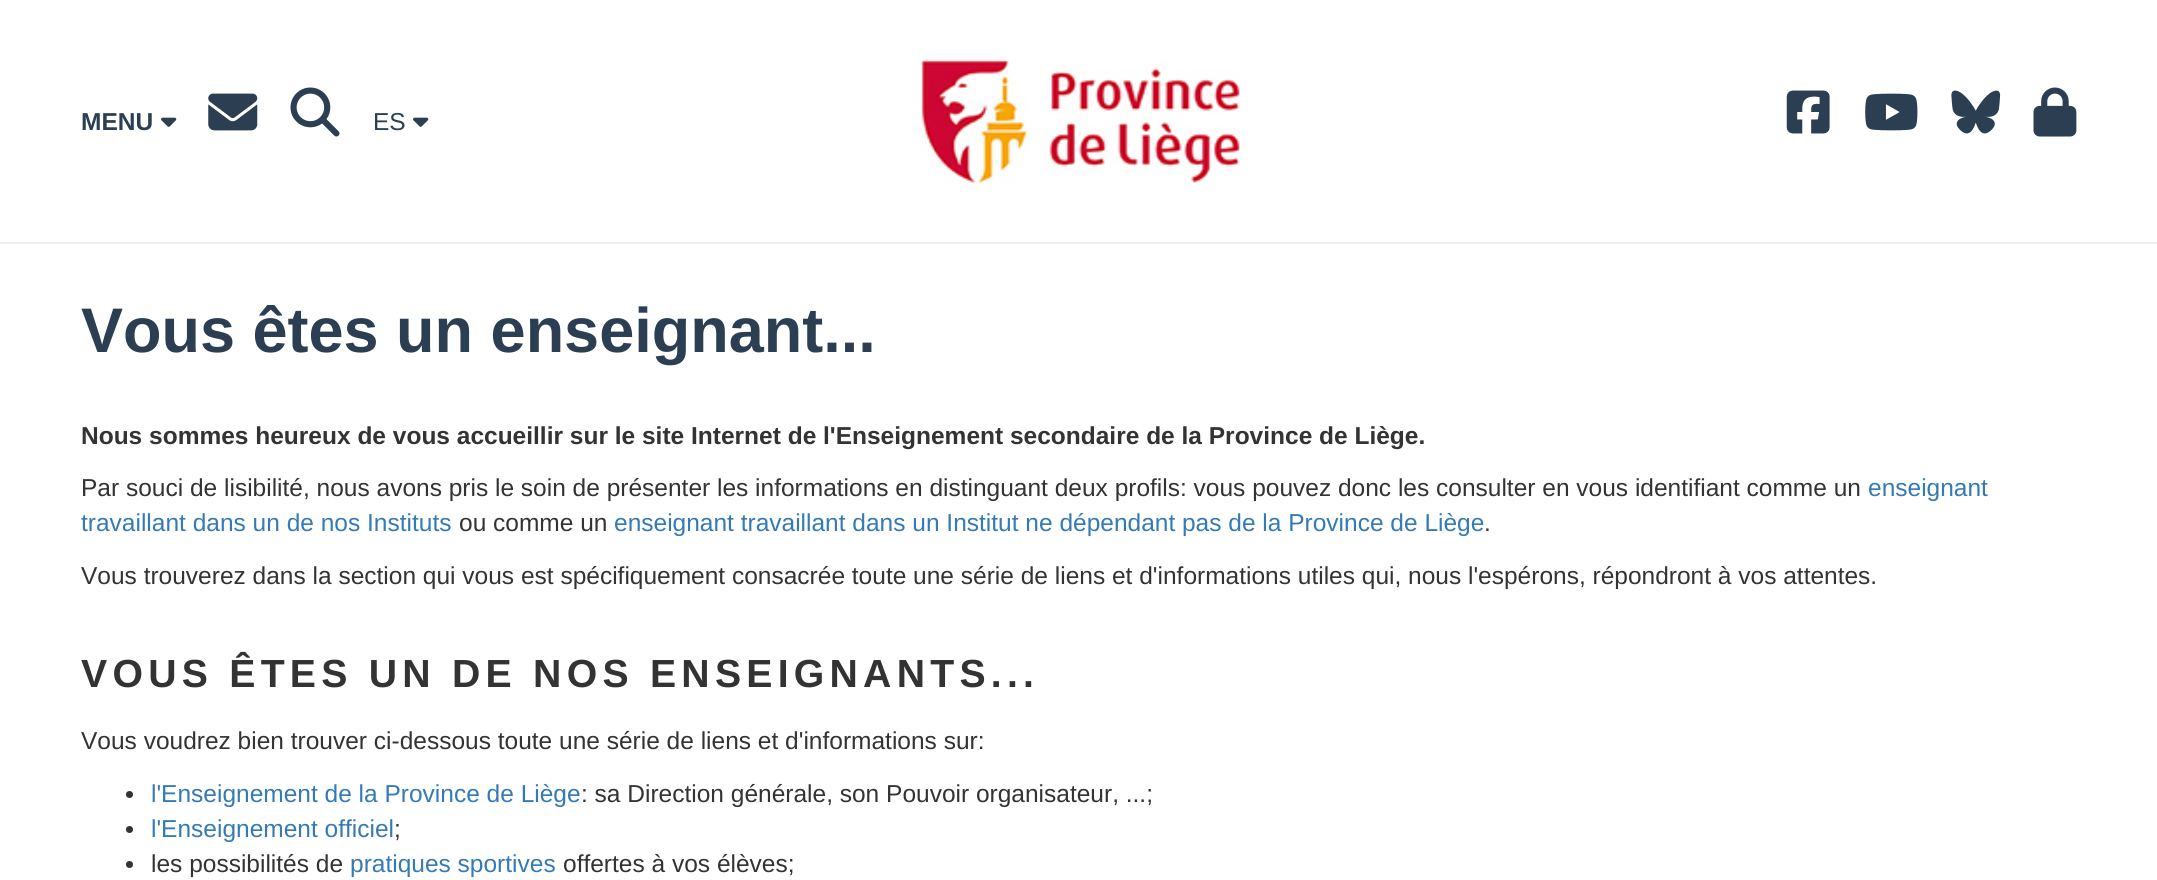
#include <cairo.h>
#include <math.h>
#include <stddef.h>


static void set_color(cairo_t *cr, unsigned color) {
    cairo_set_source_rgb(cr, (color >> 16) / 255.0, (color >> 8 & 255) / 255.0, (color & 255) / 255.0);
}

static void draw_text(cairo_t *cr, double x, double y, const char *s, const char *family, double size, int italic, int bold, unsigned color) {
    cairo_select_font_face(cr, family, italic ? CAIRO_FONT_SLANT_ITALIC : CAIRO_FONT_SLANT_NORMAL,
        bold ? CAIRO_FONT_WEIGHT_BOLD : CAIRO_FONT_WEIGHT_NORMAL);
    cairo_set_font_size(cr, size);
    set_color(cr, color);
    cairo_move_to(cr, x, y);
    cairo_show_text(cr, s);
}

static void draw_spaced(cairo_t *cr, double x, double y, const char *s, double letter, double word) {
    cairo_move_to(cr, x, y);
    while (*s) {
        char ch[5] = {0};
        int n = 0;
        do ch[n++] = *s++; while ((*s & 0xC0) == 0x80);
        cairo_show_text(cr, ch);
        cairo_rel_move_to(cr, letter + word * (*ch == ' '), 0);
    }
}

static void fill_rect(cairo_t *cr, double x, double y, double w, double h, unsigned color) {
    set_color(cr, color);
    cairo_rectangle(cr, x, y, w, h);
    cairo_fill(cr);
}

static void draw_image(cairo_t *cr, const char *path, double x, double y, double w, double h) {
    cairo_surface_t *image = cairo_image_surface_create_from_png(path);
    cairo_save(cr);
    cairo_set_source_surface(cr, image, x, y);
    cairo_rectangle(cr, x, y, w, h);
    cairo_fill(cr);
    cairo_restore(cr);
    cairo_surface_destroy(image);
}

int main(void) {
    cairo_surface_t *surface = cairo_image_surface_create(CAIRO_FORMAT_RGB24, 2157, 880);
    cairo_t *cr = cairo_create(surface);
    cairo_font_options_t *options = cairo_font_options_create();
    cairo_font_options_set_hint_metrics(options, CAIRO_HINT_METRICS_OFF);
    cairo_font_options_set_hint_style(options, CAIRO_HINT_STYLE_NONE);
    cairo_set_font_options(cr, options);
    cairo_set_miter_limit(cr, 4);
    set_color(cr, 0xFFFFFF);
    cairo_paint(cr);
    fill_rect(cr, 0, 242, 2157, 2, 0xEFEFEF);
    draw_text(cr, 81, 130, "MENU", "Liberation Sans", 24.5, 0, 1, 0x2C3F52);
    draw_image(cr, "assets/img1.png", 161, 117, 16, 10);
    draw_image(cr, "assets/img2.png", 208, 93, 50, 38);
    draw_image(cr, "assets/img3.png", 290, 87, 50, 50);
    draw_text(cr, 373, 130, "ES", "Liberation Sans", 24.5, 0, 0, 0x2C3F52);
    draw_image(cr, "assets/img1.png", 413, 117, 16, 10);
    draw_image(cr, "assets/img4.png", 920, 58, 320, 127);
    draw_image(cr, "assets/img5.png", 1786, 90, 44, 44);
    draw_image(cr, "assets/img6.png", 1865, 93, 53, 38);
    draw_image(cr, "assets/img7.png", 1951, 90, 50, 44);
    draw_image(cr, "assets/img8.png", 2033, 87, 44, 50);
    draw_text(cr, 81, 352, "Vous êtes un enseignant...", "Liberation Sans", 63, 0, 1, 0x2C3F52);
    draw_text(cr, 81, 444, "Nous sommes heureux de vous accueillir sur le site Internet de l'Enseignement secondaire de la Province de Liège.", "Liberation Sans", 24.5, 0, 1, 0x333333);
    draw_text(cr, 81, 496, "Par souci de lisibilité, nous avons pris le soin de présenter les informations en distinguant deux profils: vous pouvez donc les consulter en vous identifiant comme un", "Liberation Sans", 24.5, 0, 0, 0x333333);
    draw_text(cr, 1868, 496, "enseignant", "Liberation Sans", 24.5, 0, 0, 0x337AB7);
    draw_text(cr, 81, 531, "travaillant dans un de nos Instituts", "Liberation Sans", 24.5, 0, 0, 0x337AB7);
    draw_text(cr, 459, 531, "ou comme un", "Liberation Sans", 24.5, 0, 0, 0x333333);
    draw_text(cr, 614, 531, "enseignant travaillant dans un Institut ne dépendant pas de la Province de Liège", "Liberation Sans", 24.5, 0, 0, 0x337AB7);
    draw_text(cr, 1484, 531, ".", "Liberation Sans", 24.5, 0, 0, 0x333333);
    draw_text(cr, 81, 584, "Vous trouverez dans la section qui vous est spécifiquement consacrée toute une série de liens et d'informations utiles qui, nous l'espérons, répondront à vos attentes.", "Liberation Sans", 24.5, 0, 0, 0x333333);
    cairo_select_font_face(cr, "Liberation Sans", CAIRO_FONT_SLANT_NORMAL, CAIRO_FONT_WEIGHT_BOLD);
    cairo_set_font_size(cr, 39.2);
    draw_spaced(cr, 81, 687, "VOUS ÊTES UN DE NOS ENSEIGNANTS...", 5.25, 0);
    draw_text(cr, 81, 749, "Vous voudrez bien trouver ci-dessous toute une série de liens et d'informations sur:", "Liberation Sans", 24.5, 0, 0, 0x333333);
    cairo_new_path(cr);
    cairo_arc(cr, 129.5, 794.5, 3.5, 0, 2 * M_PI);
    cairo_fill(cr);
    draw_text(cr, 151, 802, "l'Enseignement de la Province de Liège", "Liberation Sans", 24.5, 0, 0, 0x337AB7);
    draw_text(cr, 581, 802, ": sa Direction générale, son Pouvoir organisateur, ...;", "Liberation Sans", 24.5, 0, 0, 0x333333);
    cairo_new_path(cr);
    cairo_arc(cr, 129.5, 829.5, 3.5, 0, 2 * M_PI);
    cairo_fill(cr);
    draw_text(cr, 151, 837, "l'Enseignement officiel", "Liberation Sans", 24.5, 0, 0, 0x337AB7);
    draw_text(cr, 394, 837, ";", "Liberation Sans", 24.5, 0, 0, 0x333333);
    cairo_new_path(cr);
    cairo_arc(cr, 129.5, 864.5, 3.5, 0, 2 * M_PI);
    cairo_fill(cr);
    draw_text(cr, 151, 872, "les possibilités de", "Liberation Sans", 24.5, 0, 0, 0x333333);
    draw_text(cr, 350, 872, "pratiques sportives", "Liberation Sans", 24.5, 0, 0, 0x337AB7);
    draw_text(cr, 563, 872, "offertes à vos élèves;", "Liberation Sans", 24.5, 0, 0, 0x333333);
    cairo_surface_write_to_png(surface, "output.png");
    cairo_font_options_destroy(options);
    cairo_destroy(cr);
    cairo_surface_destroy(surface);
    return 0;
}
